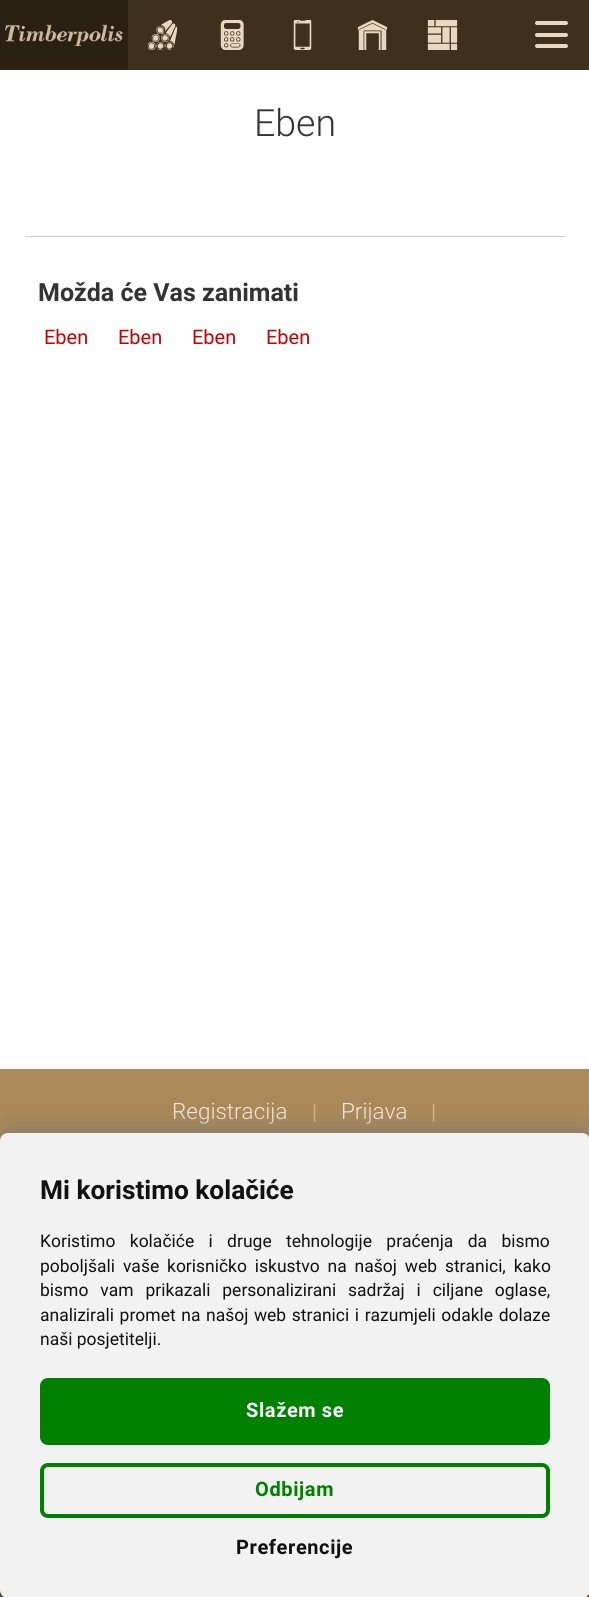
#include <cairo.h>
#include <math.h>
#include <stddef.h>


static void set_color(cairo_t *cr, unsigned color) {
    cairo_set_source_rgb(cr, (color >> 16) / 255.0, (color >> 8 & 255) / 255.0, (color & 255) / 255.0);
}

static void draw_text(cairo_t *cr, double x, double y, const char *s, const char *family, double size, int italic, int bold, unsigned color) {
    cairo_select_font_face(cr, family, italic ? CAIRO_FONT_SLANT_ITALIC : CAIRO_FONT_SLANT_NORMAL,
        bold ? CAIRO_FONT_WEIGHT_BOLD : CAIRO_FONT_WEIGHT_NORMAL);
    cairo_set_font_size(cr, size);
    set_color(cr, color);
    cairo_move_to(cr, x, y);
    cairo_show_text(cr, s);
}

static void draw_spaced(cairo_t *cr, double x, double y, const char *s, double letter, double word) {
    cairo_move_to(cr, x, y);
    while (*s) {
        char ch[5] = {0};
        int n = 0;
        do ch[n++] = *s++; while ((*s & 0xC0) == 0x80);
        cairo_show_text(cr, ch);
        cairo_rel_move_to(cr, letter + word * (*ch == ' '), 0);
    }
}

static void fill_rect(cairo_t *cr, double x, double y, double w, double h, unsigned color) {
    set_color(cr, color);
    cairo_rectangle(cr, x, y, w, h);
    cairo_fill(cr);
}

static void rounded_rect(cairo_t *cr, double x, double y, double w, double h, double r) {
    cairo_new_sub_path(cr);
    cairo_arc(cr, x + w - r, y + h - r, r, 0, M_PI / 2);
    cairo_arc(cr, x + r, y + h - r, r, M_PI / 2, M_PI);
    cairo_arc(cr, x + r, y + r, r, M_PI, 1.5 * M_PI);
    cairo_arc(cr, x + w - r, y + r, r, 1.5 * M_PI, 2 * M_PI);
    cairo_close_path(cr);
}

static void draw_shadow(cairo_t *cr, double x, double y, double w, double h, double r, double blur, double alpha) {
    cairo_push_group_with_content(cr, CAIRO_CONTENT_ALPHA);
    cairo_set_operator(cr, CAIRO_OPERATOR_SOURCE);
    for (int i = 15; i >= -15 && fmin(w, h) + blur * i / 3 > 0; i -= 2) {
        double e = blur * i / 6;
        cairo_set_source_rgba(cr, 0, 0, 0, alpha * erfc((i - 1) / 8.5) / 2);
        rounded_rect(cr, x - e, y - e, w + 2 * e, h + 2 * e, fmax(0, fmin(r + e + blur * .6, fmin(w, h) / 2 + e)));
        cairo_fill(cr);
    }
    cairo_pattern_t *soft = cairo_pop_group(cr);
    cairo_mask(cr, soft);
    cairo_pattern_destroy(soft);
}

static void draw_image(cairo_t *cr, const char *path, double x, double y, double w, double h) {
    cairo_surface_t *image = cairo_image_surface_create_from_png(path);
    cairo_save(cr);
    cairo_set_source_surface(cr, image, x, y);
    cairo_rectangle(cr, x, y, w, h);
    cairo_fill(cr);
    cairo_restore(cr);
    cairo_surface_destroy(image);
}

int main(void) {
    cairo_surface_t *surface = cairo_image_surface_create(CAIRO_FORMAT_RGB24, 589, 1597);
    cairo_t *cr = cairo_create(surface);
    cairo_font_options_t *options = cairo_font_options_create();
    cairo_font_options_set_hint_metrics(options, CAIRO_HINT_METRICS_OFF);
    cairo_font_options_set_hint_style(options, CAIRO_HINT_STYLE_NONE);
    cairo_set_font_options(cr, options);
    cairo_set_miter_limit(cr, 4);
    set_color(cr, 0xFFFFFF);
    cairo_paint(cr);
    fill_rect(cr, 128, 0, 461, 70, 0x3E301D);
    fill_rect(cr, 0, 0, 128, 70, 0x2B2113);
    draw_image(cr, "assets/img1.png", 5, 24, 118, 22);
    draw_image(cr, "assets/img2.png", 147, 20, 31, 30);
    draw_image(cr, "assets/img3.png", 220, 20, 24, 30);
    draw_image(cr, "assets/img4.png", 293, 20, 19, 30);
    draw_image(cr, "assets/img5.png", 357, 20, 31, 30);
    draw_image(cr, "assets/img6.png", 427, 20, 31, 30);
    set_color(cr, 0xE9D7C0);
    rounded_rect(cr, 535, 21, 33, 4, 2);
    cairo_fill(cr);
    rounded_rect(cr, 535, 33, 33, 4, 2);
    cairo_fill(cr);
    rounded_rect(cr, 535, 44, 33, 4, 2);
    cairo_fill(cr);
    draw_text(cr, 254, 136, "Eben", "Roboto Light", 37.5, 0, 0, 0x333333);
    fill_rect(cr, 25, 236, 540, 1, 0xCCCCCC);
    draw_text(cr, 38, 301, "Možda će Vas zanimati", "Roboto", 25, 0, 1, 0x333333);
    draw_text(cr, 44, 344, "Eben", "Roboto", 20, 0, 0, 0xC40000);
    draw_text(cr, 118, 344, "Eben", "Roboto", 20, 0, 0, 0xC40000);
    draw_text(cr, 192, 344, "Eben", "Roboto", 20, 0, 0, 0xC40000);
    draw_text(cr, 266, 344, "Eben", "Roboto", 20, 0, 0, 0xC40000);
    fill_rect(cr, 0, 1069, 589, 72, 0xAC8958);
    draw_text(cr, 172, 1119, "Registracija", "Roboto Light", 22.5, 0, 0, 0xF7ECE1);
    draw_text(cr, 312, 1119, "|", "Roboto", 21, 0, 0, 0xDEB387);
    draw_text(cr, 341, 1119, "Prijava", "Roboto Light", 22.5, 0, 0, 0xF7ECE1);
    draw_text(cr, 431, 1119, "|", "Roboto", 21, 0, 0, 0xDEB387);
    fill_rect(cr, 0, 1590, 589, 7, 0x3E301D);
    set_color(cr, 0x777777);
    draw_shadow(cr, 0, 1133, 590, 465, 8, 13, 1);
    set_color(cr, 0xF2F2F2);
    rounded_rect(cr, 0, 1133, 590, 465, 8);
    cairo_fill(cr);
    draw_text(cr, 40, 1199, "Mi koristimo kolačiće", "Roboto", 26.25, 0, 1, 0x111111);
    cairo_select_font_face(cr, "Roboto", CAIRO_FONT_SLANT_NORMAL, CAIRO_FONT_WEIGHT_NORMAL);
    cairo_set_font_size(cr, 17.5);
    draw_spaced(cr, 40, 1247, "Koristimo kolačiće i druge tehnologije praćenja da bismo", 0, 10);
    draw_spaced(cr, 40, 1272, "poboljšali vaše korisničko iskustvo na našoj web stranici, kako", 0, 3.5);
    draw_spaced(cr, 40, 1296, "bismo vam prikazali personalizirani sadržaj i ciljane oglase,", 0, 7.5);
    draw_spaced(cr, 40, 1321, "analizirali promet na našoj web stranici i razumjeli odakle dolaze", 0, 1.25);
    draw_text(cr, 40, 1345, "naši posjetitelji.", "Roboto", 17.5, 0, 0, 0x111111);
    set_color(cr, 0x008000);
    rounded_rect(cr, 42, 1380, 506, 63, 6);
    cairo_fill_preserve(cr);
    cairo_set_line_width(cr, 4);
    cairo_stroke(cr);
    cairo_select_font_face(cr, "Roboto", CAIRO_FONT_SLANT_NORMAL, CAIRO_FONT_WEIGHT_BOLD);
    cairo_set_font_size(cr, 20);
    set_color(cr, 0xFFFFFF);
    draw_spaced(cr, 246, 1417, "Slažem se", 0.6, 0);
    rounded_rect(cr, 42, 1465, 506, 51, 6);
    set_color(cr, 0x008000);
    cairo_stroke(cr);
    draw_spaced(cr, 255, 1496, "Odbijam", 0.6, 0);
    set_color(cr, 0x111111);
    draw_spaced(cr, 236, 1554, "Preferencije", 0.6, 0);
    cairo_surface_write_to_png(surface, "output.png");
    cairo_font_options_destroy(options);
    cairo_destroy(cr);
    cairo_surface_destroy(surface);
    return 0;
}
